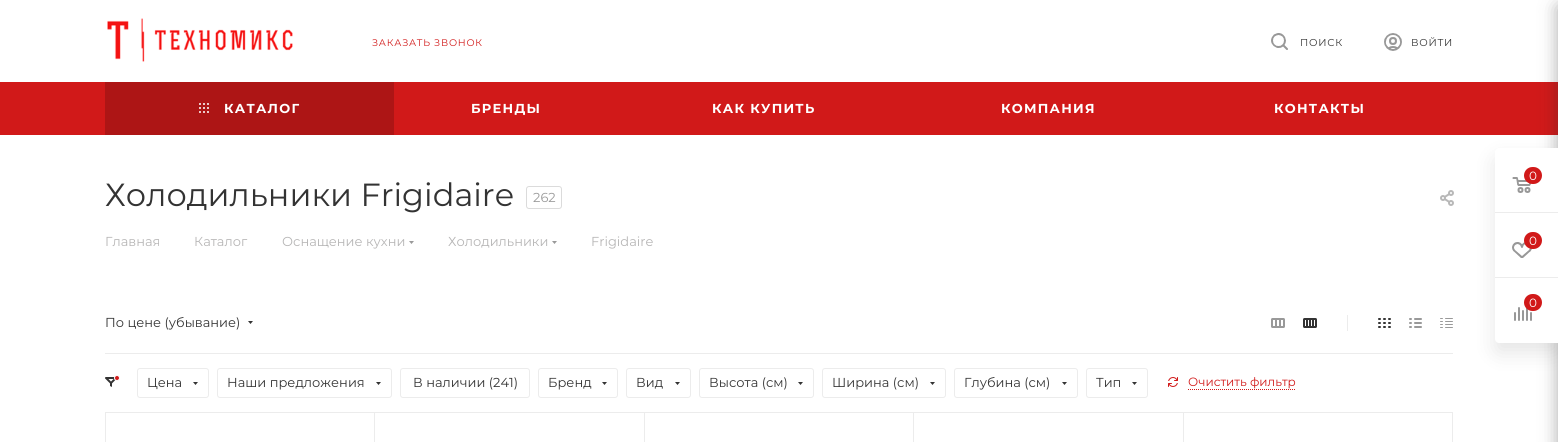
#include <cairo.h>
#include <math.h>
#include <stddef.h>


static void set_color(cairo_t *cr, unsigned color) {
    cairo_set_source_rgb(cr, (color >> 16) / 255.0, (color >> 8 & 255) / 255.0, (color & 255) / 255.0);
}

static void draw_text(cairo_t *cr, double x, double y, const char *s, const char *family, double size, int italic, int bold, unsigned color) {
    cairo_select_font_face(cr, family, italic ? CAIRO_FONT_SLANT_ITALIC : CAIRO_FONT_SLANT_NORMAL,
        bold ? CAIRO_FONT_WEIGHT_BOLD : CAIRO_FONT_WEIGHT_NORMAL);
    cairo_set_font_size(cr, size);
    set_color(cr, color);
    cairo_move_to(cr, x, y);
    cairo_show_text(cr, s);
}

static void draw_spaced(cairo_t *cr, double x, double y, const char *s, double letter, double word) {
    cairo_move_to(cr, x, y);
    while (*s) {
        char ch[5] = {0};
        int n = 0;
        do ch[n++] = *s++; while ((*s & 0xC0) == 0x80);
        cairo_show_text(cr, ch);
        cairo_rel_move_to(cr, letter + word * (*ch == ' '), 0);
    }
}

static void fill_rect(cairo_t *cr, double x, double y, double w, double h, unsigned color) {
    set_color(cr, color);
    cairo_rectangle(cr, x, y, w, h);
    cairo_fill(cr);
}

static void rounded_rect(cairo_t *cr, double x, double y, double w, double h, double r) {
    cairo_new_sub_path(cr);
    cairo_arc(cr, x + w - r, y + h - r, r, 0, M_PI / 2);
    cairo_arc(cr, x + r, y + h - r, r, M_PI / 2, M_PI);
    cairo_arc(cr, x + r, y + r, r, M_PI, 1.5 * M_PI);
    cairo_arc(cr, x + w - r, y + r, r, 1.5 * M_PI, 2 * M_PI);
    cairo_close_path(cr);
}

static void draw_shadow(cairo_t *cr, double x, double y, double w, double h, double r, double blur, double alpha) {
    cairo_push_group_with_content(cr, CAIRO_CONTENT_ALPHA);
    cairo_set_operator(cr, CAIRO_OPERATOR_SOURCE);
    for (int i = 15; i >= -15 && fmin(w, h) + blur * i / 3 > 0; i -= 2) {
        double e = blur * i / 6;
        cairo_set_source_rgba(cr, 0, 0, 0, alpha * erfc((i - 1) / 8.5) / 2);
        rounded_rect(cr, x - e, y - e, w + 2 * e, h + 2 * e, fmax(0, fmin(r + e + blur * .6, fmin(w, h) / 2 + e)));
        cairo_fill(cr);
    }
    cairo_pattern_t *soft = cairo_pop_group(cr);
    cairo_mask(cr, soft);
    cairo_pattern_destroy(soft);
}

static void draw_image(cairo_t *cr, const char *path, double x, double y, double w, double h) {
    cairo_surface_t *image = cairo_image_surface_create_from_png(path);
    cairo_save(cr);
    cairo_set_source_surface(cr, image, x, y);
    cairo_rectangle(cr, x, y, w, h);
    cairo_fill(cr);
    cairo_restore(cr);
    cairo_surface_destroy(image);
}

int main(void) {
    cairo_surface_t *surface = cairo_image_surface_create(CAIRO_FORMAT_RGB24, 1558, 442);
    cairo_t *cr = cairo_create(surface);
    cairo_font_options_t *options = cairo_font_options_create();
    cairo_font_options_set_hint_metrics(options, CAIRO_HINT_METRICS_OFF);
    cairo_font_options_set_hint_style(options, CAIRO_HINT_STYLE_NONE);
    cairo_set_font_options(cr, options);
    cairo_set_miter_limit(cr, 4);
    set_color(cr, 0xFFFFFF);
    cairo_paint(cr);
    draw_image(cr, "assets/img1.png", 107, 18, 186, 44);
    cairo_select_font_face(cr, "Montserrat", CAIRO_FONT_SLANT_NORMAL, CAIRO_FONT_WEIGHT_NORMAL);
    cairo_set_font_size(cr, 9.6);
    set_color(cr, 0xD11919);
    draw_spaced(cr, 372, 46, "ЗАКАЗАТЬ ЗВОНОК", 0.75, 0);
    draw_image(cr, "assets/img2.png", 1271, 33, 17, 17);
    cairo_set_font_size(cr, 10);
    set_color(cr, 0x333333);
    draw_spaced(cr, 1300, 46, "ПОИСК", 0.75, 0);
    draw_image(cr, "assets/img3.png", 1384, 33, 18, 18);
    draw_spaced(cr, 1411, 46, "ВОЙТИ", 0.75, 0);
    fill_rect(cr, 0, 82, 1558, 53, 0xD11919);
    fill_rect(cr, 105, 82, 289, 53, 0xAD1515);
    draw_image(cr, "assets/img4.png", 199, 103, 10, 10);
    cairo_select_font_face(cr, "Montserrat", CAIRO_FONT_SLANT_NORMAL, CAIRO_FONT_WEIGHT_BOLD);
    cairo_set_font_size(cr, 13);
    set_color(cr, 0xFFFFFF);
    draw_spaced(cr, 224, 113, "КАТАЛОГ", 1.25, 0);
    draw_spaced(cr, 471, 113, "БРЕНДЫ", 1.25, 0);
    draw_spaced(cr, 712, 113, "КАК КУПИТЬ", 1.25, 0);
    draw_spaced(cr, 1001, 113, "КОМПАНИЯ", 1.25, 0);
    draw_spaced(cr, 1274, 113, "КОНТАКТЫ", 1.25, 0);
    draw_text(cr, 105, 206, "Холодильники Frigidaire", "Montserrat", 32, 0, 0, 0x333333);
    rounded_rect(cr, 526.5, 186.5, 35, 22, 2.5);
    set_color(cr, 0xDBDBDB);
    cairo_set_line_width(cr, 1);
    cairo_stroke(cr);
    draw_text(cr, 533, 202, "262", "Montserrat", 13, 0, 0, 0x999999);
    draw_image(cr, "assets/img5.png", 1440, 190, 14, 16);
    draw_text(cr, 105, 246, "Главная", "Montserrat", 13, 0, 0, 0xB6B5B5);
    draw_text(cr, 194, 246, "Каталог", "Montserrat", 13, 0, 0, 0xB6B5B5);
    draw_text(cr, 282, 246, "Оснащение кухни", "Montserrat", 13, 0, 0, 0xB6B5B5);
    set_color(cr, 0x999999);
    cairo_set_fill_rule(cr, CAIRO_FILL_RULE_EVEN_ODD);
    cairo_new_path(cr);
    cairo_move_to(cr, 409, 241);
    cairo_line_to(cr, 414, 241);
    cairo_line_to(cr, 411.5, 244);
    cairo_close_path(cr);
    cairo_fill(cr);
    draw_text(cr, 448, 246, "Холодильники", "Montserrat", 13, 0, 0, 0xB6B5B5);
    set_color(cr, 0x999999);
    cairo_new_path(cr);
    cairo_move_to(cr, 552, 241);
    cairo_line_to(cr, 557, 241);
    cairo_line_to(cr, 554.5, 244);
    cairo_close_path(cr);
    cairo_fill(cr);
    draw_text(cr, 591, 246, "Frigidaire", "Montserrat", 13, 0, 0, 0xB6B5B5);
    fill_rect(cr, 105, 353, 1348, 1, 0xECECEC);
    draw_text(cr, 105, 327, "По цене (убывание)", "Montserrat", 13, 0, 0, 0x333333);
    cairo_new_path(cr);
    cairo_move_to(cr, 248, 321);
    cairo_line_to(cr, 253, 321);
    cairo_line_to(cr, 250.5, 324);
    cairo_close_path(cr);
    cairo_fill(cr);
    draw_image(cr, "assets/img6.png", 1271, 318, 14, 10);
    draw_image(cr, "assets/img7.png", 1303, 318, 14, 10);
    fill_rect(cr, 1347, 315, 1, 16, 0xECECEC);
    draw_image(cr, "assets/img8.png", 1378, 318, 13, 10);
    draw_image(cr, "assets/img9.png", 1409, 318, 13, 10);
    draw_image(cr, "assets/img10.png", 1440, 318, 13, 10);
    draw_image(cr, "assets/img11.png", 105, 377, 11, 10);
    set_color(cr, 0xD11919);
    cairo_arc(cr, 117, 378, 2.5, 0, 2 * M_PI);
    cairo_fill_preserve(cr);
    set_color(cr, 0xFFFFFF);
    cairo_stroke(cr);
    rounded_rect(cr, 137.5, 368.5, 71, 29, 2.5);
    set_color(cr, 0xECECEC);
    cairo_stroke(cr);
    draw_text(cr, 147, 387, "Цена", "Montserrat", 13, 0, 0, 0x333333);
    cairo_new_path(cr);
    cairo_move_to(cr, 193, 382);
    cairo_line_to(cr, 198, 382);
    cairo_line_to(cr, 195.5, 385);
    cairo_close_path(cr);
    cairo_fill(cr);
    rounded_rect(cr, 217.5, 368.5, 174, 29, 2.5);
    set_color(cr, 0xECECEC);
    cairo_stroke(cr);
    draw_text(cr, 227, 387, "Наши предложения", "Montserrat", 13, 0, 0, 0x333333);
    cairo_new_path(cr);
    cairo_move_to(cr, 376, 382);
    cairo_line_to(cr, 381, 382);
    cairo_line_to(cr, 378.5, 385);
    cairo_close_path(cr);
    cairo_fill(cr);
    rounded_rect(cr, 400.5, 368.5, 129, 29, 2.5);
    set_color(cr, 0xECECEC);
    cairo_stroke(cr);
    draw_text(cr, 413, 387, "В наличии (241)", "Montserrat", 13, 0, 0, 0x333333);
    rounded_rect(cr, 538.5, 368.5, 79, 29, 2.5);
    set_color(cr, 0xECECEC);
    cairo_stroke(cr);
    draw_text(cr, 548, 387, "Бренд", "Montserrat", 13, 0, 0, 0x333333);
    cairo_new_path(cr);
    cairo_move_to(cr, 602, 382);
    cairo_line_to(cr, 607, 382);
    cairo_line_to(cr, 604.5, 385);
    cairo_close_path(cr);
    cairo_fill(cr);
    rounded_rect(cr, 626.5, 368.5, 64, 29, 2.5);
    set_color(cr, 0xECECEC);
    cairo_stroke(cr);
    draw_text(cr, 636, 387, "Вид", "Montserrat", 13, 0, 0, 0x333333);
    cairo_new_path(cr);
    cairo_move_to(cr, 675, 382);
    cairo_line_to(cr, 680, 382);
    cairo_line_to(cr, 677.5, 385);
    cairo_close_path(cr);
    cairo_fill(cr);
    rounded_rect(cr, 699.5, 368.5, 114, 29, 2.5);
    set_color(cr, 0xECECEC);
    cairo_stroke(cr);
    draw_text(cr, 709, 387, "Высота (см)", "Montserrat", 13, 0, 0, 0x333333);
    cairo_new_path(cr);
    cairo_move_to(cr, 798, 382);
    cairo_line_to(cr, 803, 382);
    cairo_line_to(cr, 800.5, 385);
    cairo_close_path(cr);
    cairo_fill(cr);
    rounded_rect(cr, 822.5, 368.5, 123, 29, 2.5);
    set_color(cr, 0xECECEC);
    cairo_stroke(cr);
    draw_text(cr, 832, 387, "Ширина (см)", "Montserrat", 13, 0, 0, 0x333333);
    cairo_new_path(cr);
    cairo_move_to(cr, 930, 382);
    cairo_line_to(cr, 935, 382);
    cairo_line_to(cr, 932.5, 385);
    cairo_close_path(cr);
    cairo_fill(cr);
    rounded_rect(cr, 954.5, 368.5, 123, 29, 2.5);
    set_color(cr, 0xECECEC);
    cairo_stroke(cr);
    draw_text(cr, 964, 387, "Глубина (см)", "Montserrat", 13, 0, 0, 0x333333);
    cairo_new_path(cr);
    cairo_move_to(cr, 1062, 382);
    cairo_line_to(cr, 1067, 382);
    cairo_line_to(cr, 1064.5, 385);
    cairo_close_path(cr);
    cairo_fill(cr);
    rounded_rect(cr, 1086.5, 368.5, 61, 29, 2.5);
    set_color(cr, 0xECECEC);
    cairo_stroke(cr);
    draw_text(cr, 1096, 387, "Тип", "Montserrat", 13, 0, 0, 0x333333);
    cairo_new_path(cr);
    cairo_move_to(cr, 1132, 382);
    cairo_line_to(cr, 1137, 382);
    cairo_line_to(cr, 1134.5, 385);
    cairo_close_path(cr);
    cairo_fill(cr);
    draw_image(cr, "assets/img12.png", 1168, 377, 10, 10);
    draw_text(cr, 1188, 386, "Очистить фильтр", "Montserrat", 12, 0, 0, 0xD11919);
    cairo_new_path(cr);
    cairo_move_to(cr, 1188, 389.5);
    cairo_line_to(cr, 1296, 389.5);
    cairo_set_dash(cr, (double[]){1, 1}, 2, 0);
    cairo_stroke(cr);
    cairo_rectangle(cr, 105.5, 412.5, 269, 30);
    set_color(cr, 0xECECEC);
    cairo_set_dash(cr, NULL, 0, 0);
    cairo_stroke(cr);
    cairo_rectangle(cr, 374.5, 412.5, 270, 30);
    cairo_stroke(cr);
    cairo_rectangle(cr, 644.5, 412.5, 269, 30);
    cairo_stroke(cr);
    cairo_rectangle(cr, 913.5, 412.5, 270, 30);
    cairo_stroke(cr);
    cairo_rectangle(cr, 1183.5, 412.5, 269, 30);
    cairo_stroke(cr);
    set_color(cr, 0x2C2C2C);
    draw_shadow(cr, 1558, 6, 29, 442, 2, 9, 0.4);
    set_color(cr, 0x000000);
    draw_shadow(cr, 1495, 158, 63, 195, 4, 10, 0.1);
    set_color(cr, 0xFFFFFF);
    cairo_new_path(cr);
    cairo_move_to(cr, 1499, 148);
    cairo_line_to(cr, 1558, 148);
    cairo_line_to(cr, 1558, 343);
    cairo_line_to(cr, 1499, 343);
    cairo_curve_to(cr, 1497, 343, 1495, 341, 1495, 339);
    cairo_line_to(cr, 1495, 152);
    cairo_curve_to(cr, 1495, 150, 1497, 148, 1499, 148);
    cairo_close_path(cr);
    cairo_fill(cr);
    fill_rect(cr, 1495, 212, 63, 1, 0xECECEC);
    draw_image(cr, "assets/img13.png", 1512, 177, 19, 16);
    set_color(cr, 0xD11919);
    rounded_rect(cr, 1524, 167, 18, 17, 8.5);
    cairo_fill(cr);
    draw_text(cr, 1529, 180, "0", "Montserrat", 12, 0, 0, 0xFFFFFF);
    fill_rect(cr, 1495, 277, 63, 1, 0xECECEC);
    draw_image(cr, "assets/img14.png", 1512, 242, 20, 16);
    set_color(cr, 0xD11919);
    rounded_rect(cr, 1524, 232, 18, 17, 8.5);
    cairo_fill(cr);
    draw_text(cr, 1529, 245, "0", "Montserrat", 12, 0, 0, 0xFFFFFF);
    draw_image(cr, "assets/img15.png", 1514, 307, 18, 14);
    set_color(cr, 0xD11919);
    rounded_rect(cr, 1524, 294, 18, 17, 8.5);
    cairo_fill(cr);
    draw_text(cr, 1529, 307, "0", "Montserrat", 12, 0, 0, 0xFFFFFF);
    cairo_surface_write_to_png(surface, "output.png");
    cairo_font_options_destroy(options);
    cairo_destroy(cr);
    cairo_surface_destroy(surface);
    return 0;
}
